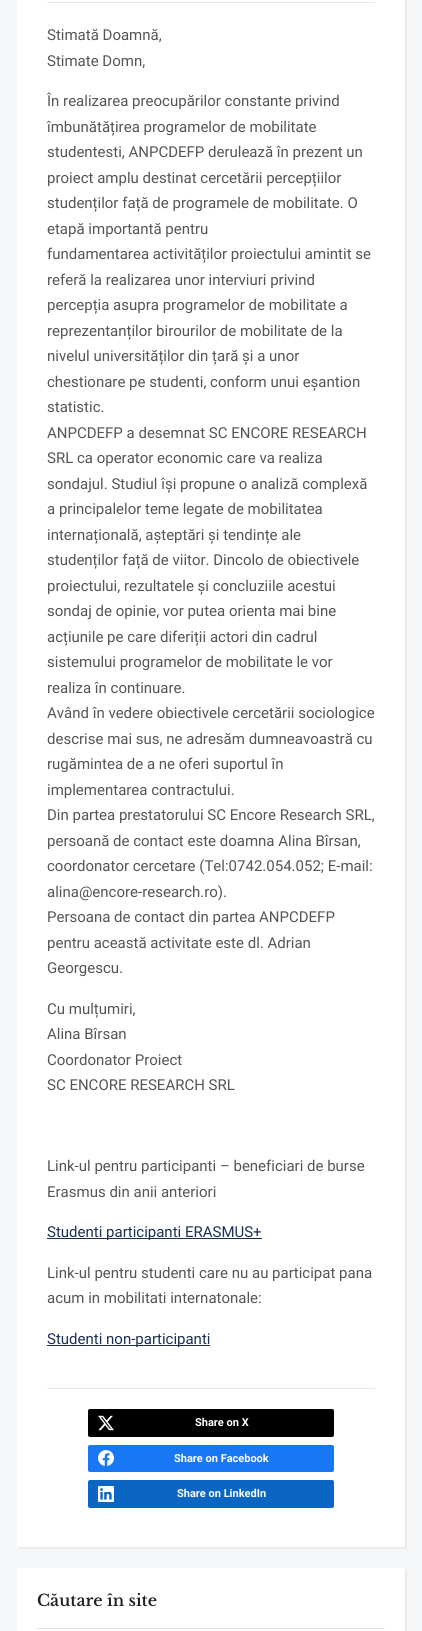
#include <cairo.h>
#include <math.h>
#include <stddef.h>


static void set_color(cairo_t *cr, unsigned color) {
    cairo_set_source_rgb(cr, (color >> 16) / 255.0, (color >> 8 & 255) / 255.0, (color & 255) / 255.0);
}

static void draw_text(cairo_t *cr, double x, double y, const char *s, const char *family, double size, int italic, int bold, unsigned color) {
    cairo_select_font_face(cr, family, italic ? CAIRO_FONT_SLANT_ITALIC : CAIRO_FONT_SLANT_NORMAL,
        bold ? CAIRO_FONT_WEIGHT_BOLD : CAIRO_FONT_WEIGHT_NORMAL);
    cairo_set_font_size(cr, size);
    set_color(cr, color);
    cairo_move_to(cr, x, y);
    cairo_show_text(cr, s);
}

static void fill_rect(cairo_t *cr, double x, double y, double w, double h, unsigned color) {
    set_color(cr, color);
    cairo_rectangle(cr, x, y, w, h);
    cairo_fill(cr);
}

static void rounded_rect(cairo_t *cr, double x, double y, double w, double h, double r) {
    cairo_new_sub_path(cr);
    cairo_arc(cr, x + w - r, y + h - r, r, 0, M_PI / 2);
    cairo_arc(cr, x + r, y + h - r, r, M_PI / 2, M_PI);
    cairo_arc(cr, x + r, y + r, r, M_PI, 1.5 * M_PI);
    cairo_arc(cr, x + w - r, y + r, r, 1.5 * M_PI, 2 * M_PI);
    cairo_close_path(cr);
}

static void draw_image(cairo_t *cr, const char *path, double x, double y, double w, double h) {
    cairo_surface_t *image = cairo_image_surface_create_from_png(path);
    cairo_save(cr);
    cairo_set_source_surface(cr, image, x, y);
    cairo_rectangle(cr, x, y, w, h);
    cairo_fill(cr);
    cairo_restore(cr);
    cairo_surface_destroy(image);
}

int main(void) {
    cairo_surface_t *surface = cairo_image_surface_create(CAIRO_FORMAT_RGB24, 422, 1631);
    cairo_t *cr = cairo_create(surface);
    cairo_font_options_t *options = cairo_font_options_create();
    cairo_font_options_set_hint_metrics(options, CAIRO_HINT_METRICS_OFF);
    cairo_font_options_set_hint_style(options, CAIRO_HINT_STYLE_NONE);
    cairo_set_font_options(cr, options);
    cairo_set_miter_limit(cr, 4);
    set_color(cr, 0xF4F6F8);
    cairo_paint(cr);
    set_color(cr, 0xE8EAEC);
    cairo_new_path(cr);
    cairo_move_to(cr, 19, 1547);
    cairo_line_to(cr, 19, 1549);
    cairo_line_to(cr, 407, 1549);
    cairo_line_to(cr, 407, -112);
    cairo_line_to(cr, 405, -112);
    cairo_line_to(cr, 405, 1547);
    cairo_close_path(cr);
    cairo_fill(cr);
    fill_rect(cr, 17, 0, 388, 1547, 0xFFFFFF);
    fill_rect(cr, 47, 2, 328, 1, 0xE7E7E7);
    draw_text(cr, 47, 40, "Stimată Doamnă,", "Roboto", 15, 0, 0, 0x555555);
    draw_text(cr, 47, 66, "Stimate Domn,", "Roboto", 15, 0, 0, 0x555555);
    draw_text(cr, 47, 106, "În realizarea preocupărilor constante privind", "Roboto", 15, 0, 0, 0x555555);
    draw_text(cr, 47, 132, "îmbunătățirea programelor de mobilitate", "Roboto", 15, 0, 0, 0x555555);
    draw_text(cr, 47, 157, "studentesti, ANPCDEFP derulează în prezent un", "Roboto", 15, 0, 0, 0x555555);
    draw_text(cr, 47, 183, "proiect amplu destinat cercetării percepțiilor", "Roboto", 15, 0, 0, 0x555555);
    draw_text(cr, 47, 208, "studenților față de programele de mobilitate. O", "Roboto", 15, 0, 0, 0x555555);
    draw_text(cr, 47, 234, "etapă importantă pentru", "Roboto", 15, 0, 0, 0x555555);
    draw_text(cr, 47, 259, "fundamentarea activităților proiectului amintit se", "Roboto", 15, 0, 0, 0x555555);
    draw_text(cr, 47, 285, "referă la realizarea unor interviuri privind", "Roboto", 15, 0, 0, 0x555555);
    draw_text(cr, 47, 310, "percepția asupra programelor de mobilitate a", "Roboto", 15, 0, 0, 0x555555);
    draw_text(cr, 47, 336, "reprezentanților birourilor de mobilitate de la", "Roboto", 15, 0, 0, 0x555555);
    draw_text(cr, 47, 361, "nivelul universităților din țară și a unor", "Roboto", 15, 0, 0, 0x555555);
    draw_text(cr, 47, 387, "chestionare pe studenti, conform unui eșantion", "Roboto", 15, 0, 0, 0x555555);
    draw_text(cr, 47, 412, "statistic.", "Roboto", 15, 0, 0, 0x555555);
    draw_text(cr, 47, 438, "ANPCDEFP a desemnat SC ENCORE RESEARCH", "Roboto", 15, 0, 0, 0x555555);
    draw_text(cr, 47, 463, "SRL ca operator economic care va realiza", "Roboto", 15, 0, 0, 0x555555);
    draw_text(cr, 47, 489, "sondajul. Studiul își propune o analiză complexă", "Roboto", 15, 0, 0, 0x555555);
    draw_text(cr, 47, 514, "a principalelor teme legate de mobilitatea", "Roboto", 15, 0, 0, 0x555555);
    draw_text(cr, 47, 540, "internațională, așteptări și tendințe ale", "Roboto", 15, 0, 0, 0x555555);
    draw_text(cr, 47, 565, "studenților față de viitor. Dincolo de obiectivele", "Roboto", 15, 0, 0, 0x555555);
    draw_text(cr, 47, 591, "proiectului, rezultatele și concluziile acestui", "Roboto", 15, 0, 0, 0x555555);
    draw_text(cr, 47, 616, "sondaj de opinie, vor putea orienta mai bine", "Roboto", 15, 0, 0, 0x555555);
    draw_text(cr, 47, 642, "acțiunile pe care diferiții actori din cadrul", "Roboto", 15, 0, 0, 0x555555);
    draw_text(cr, 47, 667, "sistemului programelor de mobilitate le vor", "Roboto", 15, 0, 0, 0x555555);
    draw_text(cr, 47, 693, "realiza în continuare.", "Roboto", 15, 0, 0, 0x555555);
    draw_text(cr, 47, 718, "Având în vedere obiectivele cercetării sociologice", "Roboto", 15, 0, 0, 0x555555);
    draw_text(cr, 47, 744, "descrise mai sus, ne adresăm dumneavoastră cu", "Roboto", 15, 0, 0, 0x555555);
    draw_text(cr, 47, 769, "rugămintea de a ne oferi suportul în", "Roboto", 15, 0, 0, 0x555555);
    draw_text(cr, 47, 795, "implementarea contractului.", "Roboto", 15, 0, 0, 0x555555);
    draw_text(cr, 47, 820, "Din partea prestatorului SC Encore Research SRL,", "Roboto", 15, 0, 0, 0x555555);
    draw_text(cr, 47, 846, "persoană de contact este doamna Alina Bîrsan,", "Roboto", 15, 0, 0, 0x555555);
    draw_text(cr, 47, 871, "coordonator cercetare (Tel:0742.054.052; E-mail:", "Roboto", 15, 0, 0, 0x555555);
    draw_text(cr, 47, 897, "alina@encore-research.ro).", "Roboto", 15, 0, 0, 0x555555);
    draw_text(cr, 47, 922, "Persoana de contact din partea ANPCDEFP", "Roboto", 15, 0, 0, 0x555555);
    draw_text(cr, 47, 948, "pentru această activitate este dl. Adrian", "Roboto", 15, 0, 0, 0x555555);
    draw_text(cr, 47, 973, "Georgescu.", "Roboto", 15, 0, 0, 0x555555);
    draw_text(cr, 47, 1014, "Cu mulțumiri,", "Roboto", 15, 0, 0, 0x555555);
    draw_text(cr, 47, 1039, "Alina Bîrsan", "Roboto", 15, 0, 0, 0x555555);
    draw_text(cr, 47, 1065, "Coordonator Proiect", "Roboto", 15, 0, 0, 0x555555);
    draw_text(cr, 47, 1090, "SC ENCORE RESEARCH SRL", "Roboto", 15, 0, 0, 0x555555);
    draw_text(cr, 47, 1171, "Link-ul pentru participanti – beneficiari de burse", "Roboto", 15, 0, 0, 0x555555);
    draw_text(cr, 47, 1197, "Erasmus din anii anteriori", "Roboto", 15, 0, 0, 0x555555);
    fill_rect(cr, 47, 1238, 215, 1, 0x1B3058);
    draw_text(cr, 47, 1237, "Studenti participanti ERASMUS+", "Roboto", 15, 0, 0, 0x1B3058);
    draw_text(cr, 47, 1278, "Link-ul pentru studenti care nu au participat pana", "Roboto", 15, 0, 0, 0x555555);
    draw_text(cr, 47, 1303, "acum in mobilitati internatonale:", "Roboto", 15, 0, 0, 0x555555);
    fill_rect(cr, 47, 1345, 163, 1, 0x1B3058);
    draw_text(cr, 47, 1344, "Studenti non-participanti", "Roboto", 15, 0, 0, 0x1B3058);
    fill_rect(cr, 47, 1388, 328, 1, 0xE7E7E7);
    set_color(cr, 0x000000);
    rounded_rect(cr, 88, 1409, 246, 28, 2);
    cairo_fill(cr);
    draw_image(cr, "assets/img1.png", 98, 1415, 16, 16);
    draw_text(cr, 195, 1426, "Share on X", "Roboto", 11, 0, 1, 0xFFFFFF);
    set_color(cr, 0x1877F2);
    rounded_rect(cr, 88, 1445, 246, 27, 2);
    cairo_fill(cr);
    draw_image(cr, "assets/img2.png", 98, 1450, 16, 16);
    draw_text(cr, 174, 1462, "Share on Facebook", "Roboto", 11, 0, 1, 0xFFFFFF);
    set_color(cr, 0x0A66C2);
    rounded_rect(cr, 88, 1480, 246, 28, 2);
    cairo_fill(cr);
    draw_image(cr, "assets/img3.png", 98, 1486, 16, 16);
    draw_text(cr, 177, 1497, "Share on LinkedIn", "Roboto", 11, 0, 1, 0xFFFFFF);
    set_color(cr, 0xE8EAEC);
    cairo_new_path(cr);
    cairo_move_to(cr, 19, 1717);
    cairo_line_to(cr, 19, 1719);
    cairo_line_to(cr, 407, 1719);
    cairo_line_to(cr, 407, 1570);
    cairo_line_to(cr, 405, 1570);
    cairo_line_to(cr, 405, 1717);
    cairo_close_path(cr);
    cairo_fill(cr);
    fill_rect(cr, 17, 1568, 388, 63, 0xFFFFFF);
    fill_rect(cr, 37, 1628, 348, 1, 0xE6E6E6);
    draw_text(cr, 37, 1606, "Căutare în site", "Libre Baskerville SemiBold", 16, 0, 0, 0x222222);
    cairo_surface_write_to_png(surface, "output.png");
    cairo_font_options_destroy(options);
    cairo_destroy(cr);
    cairo_surface_destroy(surface);
    return 0;
}
